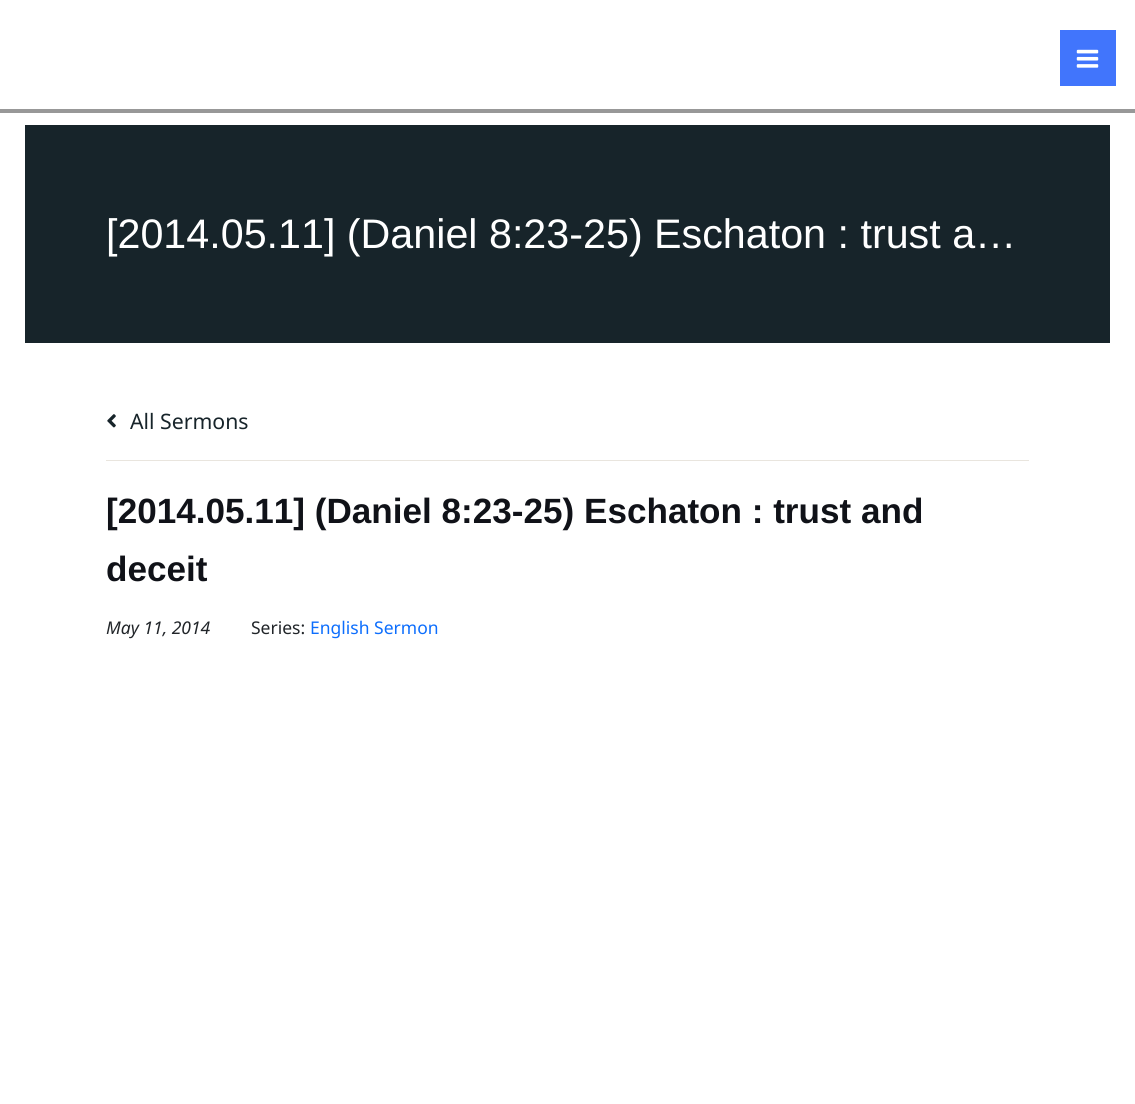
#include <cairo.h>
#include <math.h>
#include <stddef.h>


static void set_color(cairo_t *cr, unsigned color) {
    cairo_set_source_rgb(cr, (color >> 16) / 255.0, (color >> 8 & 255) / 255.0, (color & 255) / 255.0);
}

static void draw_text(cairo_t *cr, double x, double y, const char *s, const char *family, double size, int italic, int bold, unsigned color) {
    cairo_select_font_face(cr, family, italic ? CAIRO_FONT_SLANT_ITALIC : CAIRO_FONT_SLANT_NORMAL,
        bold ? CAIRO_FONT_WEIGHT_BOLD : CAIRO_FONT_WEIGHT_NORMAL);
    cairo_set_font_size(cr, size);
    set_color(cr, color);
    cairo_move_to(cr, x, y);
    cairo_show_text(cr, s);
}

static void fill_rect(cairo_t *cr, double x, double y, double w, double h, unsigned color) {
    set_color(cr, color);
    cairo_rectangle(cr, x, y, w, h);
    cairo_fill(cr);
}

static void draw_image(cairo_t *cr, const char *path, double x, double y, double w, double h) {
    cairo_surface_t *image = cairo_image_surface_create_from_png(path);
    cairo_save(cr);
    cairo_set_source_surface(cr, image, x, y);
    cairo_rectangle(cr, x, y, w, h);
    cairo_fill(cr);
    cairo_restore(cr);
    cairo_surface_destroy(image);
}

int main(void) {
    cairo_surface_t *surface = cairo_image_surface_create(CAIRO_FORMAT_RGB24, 1135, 1104);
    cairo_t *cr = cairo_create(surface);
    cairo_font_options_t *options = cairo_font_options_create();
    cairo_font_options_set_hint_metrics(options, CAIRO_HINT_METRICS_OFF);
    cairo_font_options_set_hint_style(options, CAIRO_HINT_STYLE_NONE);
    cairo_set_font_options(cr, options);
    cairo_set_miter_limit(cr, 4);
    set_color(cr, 0xFFFFFF);
    cairo_paint(cr);
    fill_rect(cr, 0, 109, 1135, 4, 0x989898);
    fill_rect(cr, 1060, 30, 56, 56, 0x4175FC);
    draw_image(cr, "assets/img1.png", 1076, 49, 23, 19);
    fill_rect(cr, 25, 125, 1085, 218, 0x17242A);
    draw_text(cr, 106, 248, "[2014.05.11] (Daniel 8:23-25) Eschaton : trust a…", "Liberation Sans", 41.25, 0, 0, 0xFFFFFF);
    fill_rect(cr, 106, 460, 923, 1, 0xE9E5DE);
    draw_image(cr, "assets/img2.png", 107, 414, 9, 14);
    draw_text(cr, 130, 429, "All Sermons", "Noto Sans", 21.25, 0, 0, 0x17242A);
    draw_text(cr, 106, 523, "[2014.05.11] (Daniel 8:23-25) Eschaton : trust and", "Liberation Sans", 35.1, 0, 1, 0x101218);
    draw_text(cr, 106, 581, "deceit", "Liberation Sans", 35.1, 0, 1, 0x101218);
    draw_text(cr, 106, 634, "May 11, 2014", "Noto Sans", 17.5, 1, 0, 0x212529);
    draw_text(cr, 251, 634, "Series:", "Noto Sans", 17.5, 0, 0, 0x212529);
    draw_text(cr, 310, 634, "English Sermon", "Noto Sans", 17.5, 0, 0, 0x0D6EFD);
    cairo_surface_write_to_png(surface, "output.png");
    cairo_font_options_destroy(options);
    cairo_destroy(cr);
    cairo_surface_destroy(surface);
    return 0;
}
